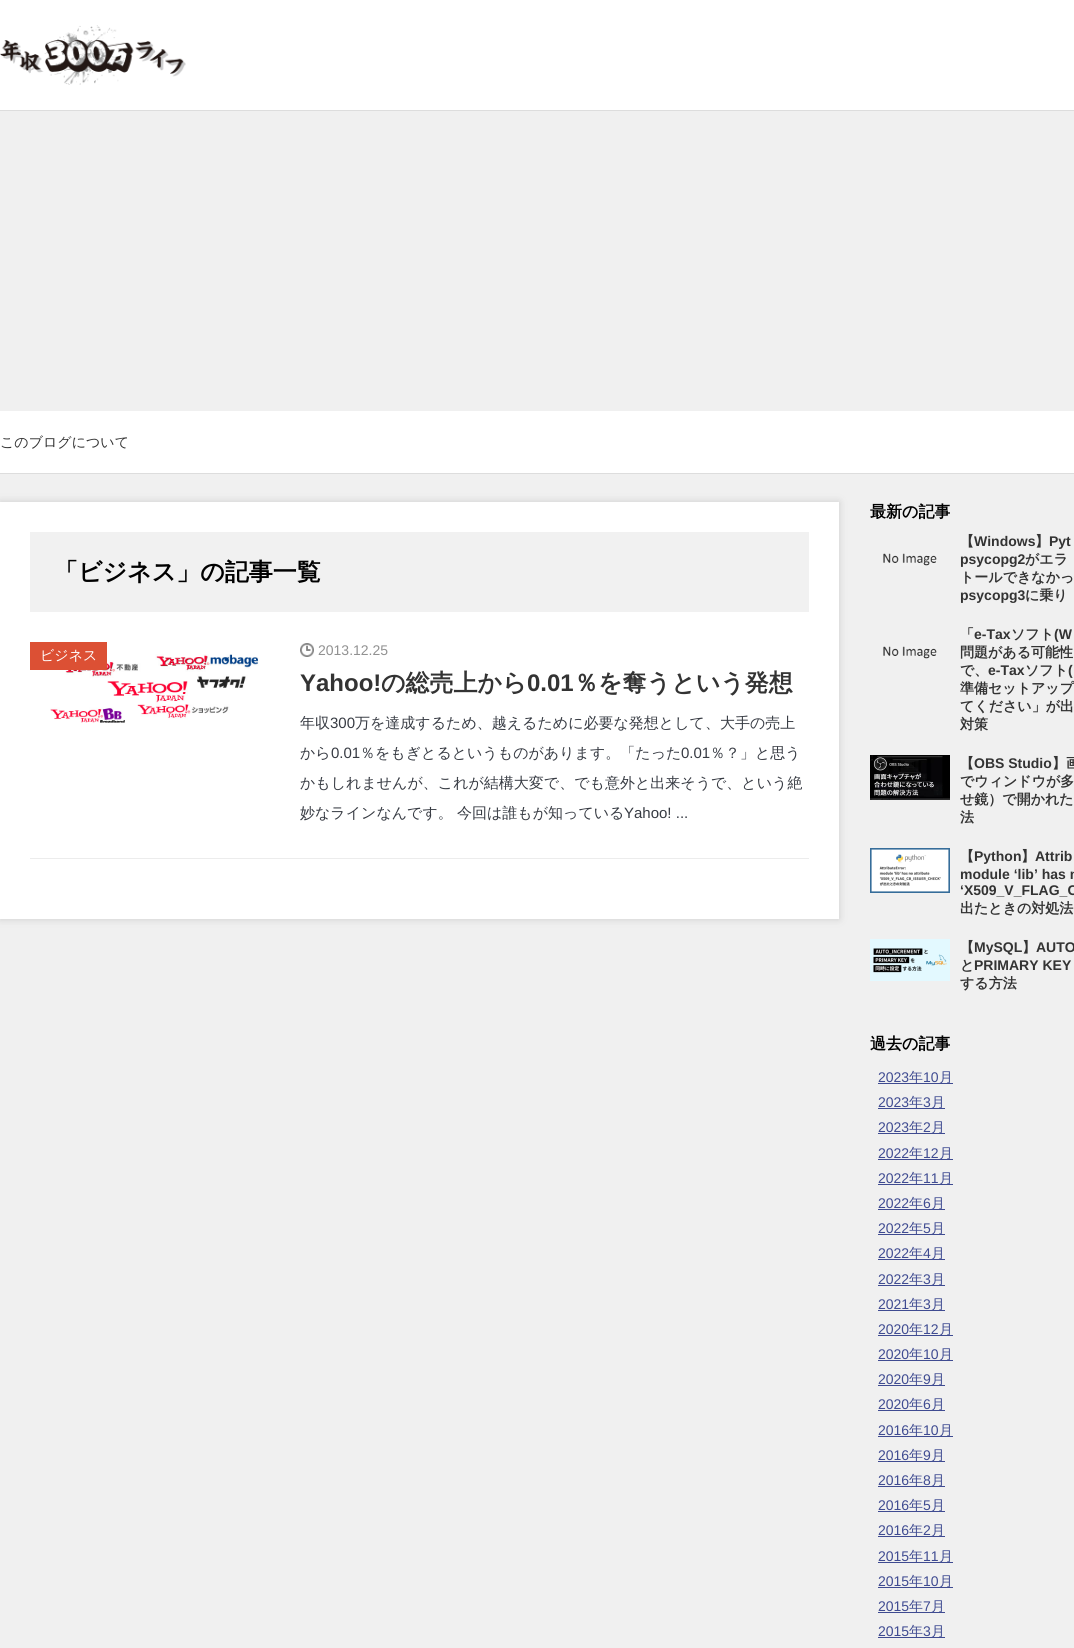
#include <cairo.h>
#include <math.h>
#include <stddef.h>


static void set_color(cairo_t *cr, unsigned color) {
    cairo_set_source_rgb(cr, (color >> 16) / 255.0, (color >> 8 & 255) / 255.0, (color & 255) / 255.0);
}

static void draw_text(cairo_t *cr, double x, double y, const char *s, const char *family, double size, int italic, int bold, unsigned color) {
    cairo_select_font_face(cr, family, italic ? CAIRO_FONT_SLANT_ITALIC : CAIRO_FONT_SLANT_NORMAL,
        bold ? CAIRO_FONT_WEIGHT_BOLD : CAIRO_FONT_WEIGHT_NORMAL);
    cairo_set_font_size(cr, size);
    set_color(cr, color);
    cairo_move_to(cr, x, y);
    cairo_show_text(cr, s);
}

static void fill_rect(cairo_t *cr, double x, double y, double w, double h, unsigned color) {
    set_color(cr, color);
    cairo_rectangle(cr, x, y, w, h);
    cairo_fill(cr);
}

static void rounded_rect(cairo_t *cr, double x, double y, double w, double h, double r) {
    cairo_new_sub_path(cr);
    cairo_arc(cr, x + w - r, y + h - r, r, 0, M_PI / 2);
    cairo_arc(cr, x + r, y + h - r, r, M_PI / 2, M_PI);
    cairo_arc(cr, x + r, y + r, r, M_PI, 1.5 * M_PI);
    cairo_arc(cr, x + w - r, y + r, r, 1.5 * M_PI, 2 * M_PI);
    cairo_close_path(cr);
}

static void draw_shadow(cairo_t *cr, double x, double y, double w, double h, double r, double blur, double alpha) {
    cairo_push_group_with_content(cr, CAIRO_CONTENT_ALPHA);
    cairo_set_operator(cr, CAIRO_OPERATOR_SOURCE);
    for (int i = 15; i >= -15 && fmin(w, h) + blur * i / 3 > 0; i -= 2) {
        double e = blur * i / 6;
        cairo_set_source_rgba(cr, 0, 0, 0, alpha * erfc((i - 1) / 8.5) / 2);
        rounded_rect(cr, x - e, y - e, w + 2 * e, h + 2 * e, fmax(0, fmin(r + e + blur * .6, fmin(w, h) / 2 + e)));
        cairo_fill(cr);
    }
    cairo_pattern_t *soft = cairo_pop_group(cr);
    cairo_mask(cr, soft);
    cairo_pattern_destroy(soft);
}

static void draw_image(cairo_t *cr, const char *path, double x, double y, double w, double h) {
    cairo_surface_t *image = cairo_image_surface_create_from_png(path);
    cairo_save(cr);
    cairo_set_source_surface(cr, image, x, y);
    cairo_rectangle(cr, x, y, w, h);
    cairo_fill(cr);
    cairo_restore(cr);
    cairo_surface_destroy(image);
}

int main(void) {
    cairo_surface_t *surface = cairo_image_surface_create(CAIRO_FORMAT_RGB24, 1074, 1648);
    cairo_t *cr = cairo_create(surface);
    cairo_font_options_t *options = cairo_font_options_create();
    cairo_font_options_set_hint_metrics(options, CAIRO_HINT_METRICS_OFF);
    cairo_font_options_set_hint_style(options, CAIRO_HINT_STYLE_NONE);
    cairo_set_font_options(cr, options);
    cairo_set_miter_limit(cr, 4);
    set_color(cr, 0xF0F0F0);
    cairo_paint(cr);
    fill_rect(cr, 0, 0, 1074, 110, 0xFFFFFF);
    fill_rect(cr, 0, 110, 1074, 1, 0xDDDDDD);
    draw_image(cr, "assets/img1.png", 0, 25, 186, 60);
    fill_rect(cr, 0, 411, 1074, 62, 0xFFFFFF);
    fill_rect(cr, 0, 473, 1074, 1, 0xDDDDDD);
    draw_text(cr, 0, 447, "このブログについて", "WenQuanYi Zen Hei Medium", 14, 0, 0, 0x333333);
    set_color(cr, 0xCCCCCC);
    draw_shadow(cr, 0, 502, 839, 417, 0, 4, 1);
    fill_rect(cr, 0, 502, 839, 417, 0xFFFFFF);
    fill_rect(cr, 30, 532, 779, 80, 0xF1F1F1);
    draw_text(cr, 54, 580, "「ビジネス」の記事一覧", "WenQuanYi Zen Hei", 24, 0, 1, 0x000000);
    fill_rect(cr, 30, 858, 779, 1, 0xECECEC);
    draw_image(cr, "assets/img2.png", 50, 654, 209, 69);
    fill_rect(cr, 30, 642, 77, 28, 0xDC5034);
    draw_text(cr, 40, 660, "ビジネス", "WenQuanYi Zen Hei Medium", 14, 0, 0, 0xFFFFFF);
    draw_image(cr, "assets/img3.png", 300, 643, 14, 14);
    draw_text(cr, 318, 655, "2013.12.25", "Liberation Sans", 14, 0, 0, 0x919191);
    draw_text(cr, 300, 691, "Yahoo!", "Liberation Sans", 24, 0, 1, 0x333333);
    draw_text(cr, 381, 691, "の総売上から", "WenQuanYi Zen Hei", 24, 0, 1, 0x333333);
    draw_text(cr, 527, 691, "0.01", "Liberation Sans", 24, 0, 1, 0x333333);
    draw_text(cr, 574, 691, "％を奪うという発想", "WenQuanYi Zen Hei", 24, 0, 1, 0x333333);
    draw_text(cr, 300, 728, "年収", "WenQuanYi Zen Hei Medium", 15, 0, 0, 0x373B43);
    draw_text(cr, 330, 728, "300", "Liberation Sans", 15, 0, 0, 0x373B43);
    draw_text(cr, 355, 728, "万を達成するため、越えるために必要な発想として、大手の売上", "WenQuanYi Zen Hei Medium", 15, 0, 0, 0x373B43);
    draw_text(cr, 300, 758, "から", "WenQuanYi Zen Hei Medium", 15, 0, 0, 0x373B43);
    draw_text(cr, 331, 758, "0.01", "Liberation Sans", 15, 0, 0, 0x373B43);
    draw_text(cr, 360, 758, "％をもぎとるというものがあります。「たった", "WenQuanYi Zen Hei Medium", 15, 0, 0, 0x373B43);
    draw_text(cr, 681, 758, "0.01", "Liberation Sans", 15, 0, 0, 0x373B43);
    draw_text(cr, 710, 758, "％？」と思う", "WenQuanYi Zen Hei Medium", 15, 0, 0, 0x373B43);
    draw_text(cr, 300, 788, "かもしれませんが、これが結構大変で、でも意外と出来そうで、という絶", "WenQuanYi Zen Hei Medium", 15, 0, 0, 0x373B43);
    draw_text(cr, 300, 818, "妙なラインなんです。", "WenQuanYi Zen Hei Medium", 15, 0, 0, 0x373B43);
    draw_text(cr, 457, 818, "今回は誰もが知っている", "WenQuanYi Zen Hei Medium", 15, 0, 0, 0x373B43);
    draw_text(cr, 624, 818, "Yahoo! ...", "Liberation Sans", 15, 0, 0, 0x373B43);
    draw_text(cr, 870, 517, "最新の記事", "WenQuanYi Zen Hei", 16, 0, 1, 0x000000);
    draw_image(cr, "assets/img4.png", 883, 553, 54, 13);
    draw_text(cr, 960, 546, "【", "WenQuanYi Zen Hei", 14, 0, 1, 0x333333);
    draw_text(cr, 974, 546, "Windows", "Liberation Sans", 14, 0, 1, 0x333333);
    draw_text(cr, 1035, 546, "】", "WenQuanYi Zen Hei", 14, 0, 1, 0x333333);
    draw_text(cr, 1049, 546, "Pyt", "Liberation Sans", 14, 0, 1, 0x333333);
    draw_text(cr, 960, 564, "psycopg2", "Liberation Sans", 14, 0, 1, 0x333333);
    draw_text(cr, 1025, 564, "がエラ", "WenQuanYi Zen Hei", 14, 0, 1, 0x333333);
    draw_text(cr, 960, 582, "トールできなかっ", "WenQuanYi Zen Hei", 14, 0, 1, 0x333333);
    draw_text(cr, 960, 600, "psycopg3", "Liberation Sans", 14, 0, 1, 0x333333);
    draw_text(cr, 1025, 600, "に乗り", "WenQuanYi Zen Hei", 14, 0, 1, 0x333333);
    draw_image(cr, "assets/img4.png", 883, 646, 54, 13);
    draw_text(cr, 960, 639, "「", "WenQuanYi Zen Hei", 14, 0, 1, 0x333333);
    draw_text(cr, 974, 639, "e-Tax", "Liberation Sans", 14, 0, 1, 0x333333);
    draw_text(cr, 1011, 639, "ソフト", "WenQuanYi Zen Hei", 14, 0, 1, 0x333333);
    draw_text(cr, 1054, 639, "(W", "Liberation Sans", 14, 0, 1, 0x333333);
    draw_text(cr, 960, 657, "問題がある可能性", "WenQuanYi Zen Hei", 14, 0, 1, 0x333333);
    draw_text(cr, 960, 675, "で、", "WenQuanYi Zen Hei", 14, 0, 1, 0x333333);
    draw_text(cr, 988, 675, "e-Tax", "Liberation Sans", 14, 0, 1, 0x333333);
    draw_text(cr, 1025, 675, "ソフト", "WenQuanYi Zen Hei", 14, 0, 1, 0x333333);
    draw_text(cr, 1068, 675, "(", "Liberation Sans", 14, 0, 1, 0x333333);
    draw_text(cr, 960, 693, "準備セットアップ", "WenQuanYi Zen Hei", 14, 0, 1, 0x333333);
    draw_text(cr, 960, 711, "てください」が出", "WenQuanYi Zen Hei", 14, 0, 1, 0x333333);
    draw_text(cr, 960, 729, "対策", "WenQuanYi Zen Hei", 14, 0, 1, 0x333333);
    draw_image(cr, "assets/img5.png", 870, 755, 80, 45);
    draw_text(cr, 960, 768, "【", "WenQuanYi Zen Hei", 14, 0, 1, 0x333333);
    draw_text(cr, 974, 768, "OBS Studio", "Liberation Sans", 14, 0, 1, 0x333333);
    draw_text(cr, 1052, 768, "】画", "WenQuanYi Zen Hei", 14, 0, 1, 0x333333);
    draw_text(cr, 960, 786, "でウィンドウが多", "WenQuanYi Zen Hei", 14, 0, 1, 0x333333);
    draw_text(cr, 960, 804, "せ鏡）で開かれた", "WenQuanYi Zen Hei", 14, 0, 1, 0x333333);
    draw_text(cr, 960, 822, "法", "WenQuanYi Zen Hei", 14, 0, 1, 0x333333);
    draw_image(cr, "assets/img6.png", 870, 848, 80, 45);
    draw_text(cr, 960, 861, "【", "WenQuanYi Zen Hei", 14, 0, 1, 0x333333);
    draw_text(cr, 974, 861, "Python", "Liberation Sans", 14, 0, 1, 0x333333);
    draw_text(cr, 1021, 861, "】", "WenQuanYi Zen Hei", 14, 0, 1, 0x333333);
    draw_text(cr, 1035, 861, "Attrib", "Liberation Sans", 14, 0, 1, 0x333333);
    draw_text(cr, 960, 879, "module ‘lib’ has n", "Liberation Sans", 14, 0, 1, 0x333333);
    draw_text(cr, 960, 895, "‘X509_V_FLAG_C", "Liberation Sans", 14, 0, 1, 0x333333);
    draw_text(cr, 960, 913, "出たときの対処法", "WenQuanYi Zen Hei", 14, 0, 1, 0x333333);
    draw_image(cr, "assets/img7.png", 870, 939, 80, 42);
    draw_text(cr, 960, 952, "【", "WenQuanYi Zen Hei", 14, 0, 1, 0x333333);
    draw_text(cr, 974, 952, "MySQL", "Liberation Sans", 14, 0, 1, 0x333333);
    draw_text(cr, 1022, 952, "】", "WenQuanYi Zen Hei", 14, 0, 1, 0x333333);
    draw_text(cr, 1036, 952, "AUTO", "Liberation Sans", 14, 0, 1, 0x333333);
    draw_text(cr, 960, 970, "と", "WenQuanYi Zen Hei", 14, 0, 1, 0x333333);
    draw_text(cr, 974, 970, "PRIMARY KEY", "Liberation Sans", 14, 0, 1, 0x333333);
    draw_text(cr, 960, 988, "する方法", "WenQuanYi Zen Hei", 14, 0, 1, 0x333333);
    draw_text(cr, 870, 1049, "過去の記事", "WenQuanYi Zen Hei", 16, 0, 1, 0x000000);
    draw_text(cr, 878, 1082, "2023", "Liberation Sans", 14, 0, 0, 0x3F4B91);
    fill_rect(cr, 878, 1083, 75, 1, 0x3F4B91);
    draw_text(cr, 909, 1082, "年", "WenQuanYi Zen Hei Medium", 14, 0, 0, 0x3F4B91);
    draw_text(cr, 923, 1082, "10", "Liberation Sans", 14, 0, 0, 0x3F4B91);
    draw_text(cr, 939, 1082, "月", "WenQuanYi Zen Hei Medium", 14, 0, 0, 0x3F4B91);
    draw_text(cr, 878, 1107, "2023", "Liberation Sans", 14, 0, 0, 0x3F4B91);
    fill_rect(cr, 878, 1108, 67, 1, 0x3F4B91);
    draw_text(cr, 909, 1107, "年", "WenQuanYi Zen Hei Medium", 14, 0, 0, 0x3F4B91);
    draw_text(cr, 923, 1107, "3", "Liberation Sans", 14, 0, 0, 0x3F4B91);
    draw_text(cr, 931, 1107, "月", "WenQuanYi Zen Hei Medium", 14, 0, 0, 0x3F4B91);
    draw_text(cr, 878, 1132, "2023", "Liberation Sans", 14, 0, 0, 0x3F4B91);
    fill_rect(cr, 878, 1133, 67, 1, 0x3F4B91);
    draw_text(cr, 909, 1132, "年", "WenQuanYi Zen Hei Medium", 14, 0, 0, 0x3F4B91);
    draw_text(cr, 923, 1132, "2", "Liberation Sans", 14, 0, 0, 0x3F4B91);
    draw_text(cr, 931, 1132, "月", "WenQuanYi Zen Hei Medium", 14, 0, 0, 0x3F4B91);
    draw_text(cr, 878, 1158, "2022", "Liberation Sans", 14, 0, 0, 0x3F4B91);
    fill_rect(cr, 878, 1159, 75, 1, 0x3F4B91);
    draw_text(cr, 909, 1158, "年", "WenQuanYi Zen Hei Medium", 14, 0, 0, 0x3F4B91);
    draw_text(cr, 923, 1158, "12", "Liberation Sans", 14, 0, 0, 0x3F4B91);
    draw_text(cr, 939, 1158, "月", "WenQuanYi Zen Hei Medium", 14, 0, 0, 0x3F4B91);
    draw_text(cr, 878, 1183, "2022", "Liberation Sans", 14, 0, 0, 0x3F4B91);
    fill_rect(cr, 878, 1184, 75, 1, 0x3F4B91);
    draw_text(cr, 909, 1183, "年", "WenQuanYi Zen Hei Medium", 14, 0, 0, 0x3F4B91);
    draw_text(cr, 923, 1183, "11", "Liberation Sans", 14, 0, 0, 0x3F4B91);
    draw_text(cr, 939, 1183, "月", "WenQuanYi Zen Hei Medium", 14, 0, 0, 0x3F4B91);
    draw_text(cr, 878, 1208, "2022", "Liberation Sans", 14, 0, 0, 0x3F4B91);
    fill_rect(cr, 878, 1209, 67, 1, 0x3F4B91);
    draw_text(cr, 909, 1208, "年", "WenQuanYi Zen Hei Medium", 14, 0, 0, 0x3F4B91);
    draw_text(cr, 923, 1208, "6", "Liberation Sans", 14, 0, 0, 0x3F4B91);
    draw_text(cr, 931, 1208, "月", "WenQuanYi Zen Hei Medium", 14, 0, 0, 0x3F4B91);
    draw_text(cr, 878, 1233, "2022", "Liberation Sans", 14, 0, 0, 0x3F4B91);
    fill_rect(cr, 878, 1234, 67, 1, 0x3F4B91);
    draw_text(cr, 909, 1233, "年", "WenQuanYi Zen Hei Medium", 14, 0, 0, 0x3F4B91);
    draw_text(cr, 923, 1233, "5", "Liberation Sans", 14, 0, 0, 0x3F4B91);
    draw_text(cr, 931, 1233, "月", "WenQuanYi Zen Hei Medium", 14, 0, 0, 0x3F4B91);
    draw_text(cr, 878, 1258, "2022", "Liberation Sans", 14, 0, 0, 0x3F4B91);
    fill_rect(cr, 878, 1259, 67, 1, 0x3F4B91);
    draw_text(cr, 909, 1258, "年", "WenQuanYi Zen Hei Medium", 14, 0, 0, 0x3F4B91);
    draw_text(cr, 923, 1258, "4", "Liberation Sans", 14, 0, 0, 0x3F4B91);
    draw_text(cr, 931, 1258, "月", "WenQuanYi Zen Hei Medium", 14, 0, 0, 0x3F4B91);
    draw_text(cr, 878, 1284, "2022", "Liberation Sans", 14, 0, 0, 0x3F4B91);
    fill_rect(cr, 878, 1285, 67, 1, 0x3F4B91);
    draw_text(cr, 909, 1284, "年", "WenQuanYi Zen Hei Medium", 14, 0, 0, 0x3F4B91);
    draw_text(cr, 923, 1284, "3", "Liberation Sans", 14, 0, 0, 0x3F4B91);
    draw_text(cr, 931, 1284, "月", "WenQuanYi Zen Hei Medium", 14, 0, 0, 0x3F4B91);
    draw_text(cr, 878, 1309, "2021", "Liberation Sans", 14, 0, 0, 0x3F4B91);
    fill_rect(cr, 878, 1310, 67, 1, 0x3F4B91);
    draw_text(cr, 909, 1309, "年", "WenQuanYi Zen Hei Medium", 14, 0, 0, 0x3F4B91);
    draw_text(cr, 923, 1309, "3", "Liberation Sans", 14, 0, 0, 0x3F4B91);
    draw_text(cr, 931, 1309, "月", "WenQuanYi Zen Hei Medium", 14, 0, 0, 0x3F4B91);
    draw_text(cr, 878, 1334, "2020", "Liberation Sans", 14, 0, 0, 0x3F4B91);
    fill_rect(cr, 878, 1335, 75, 1, 0x3F4B91);
    draw_text(cr, 909, 1334, "年", "WenQuanYi Zen Hei Medium", 14, 0, 0, 0x3F4B91);
    draw_text(cr, 923, 1334, "12", "Liberation Sans", 14, 0, 0, 0x3F4B91);
    draw_text(cr, 939, 1334, "月", "WenQuanYi Zen Hei Medium", 14, 0, 0, 0x3F4B91);
    draw_text(cr, 878, 1359, "2020", "Liberation Sans", 14, 0, 0, 0x3F4B91);
    fill_rect(cr, 878, 1360, 75, 1, 0x3F4B91);
    draw_text(cr, 909, 1359, "年", "WenQuanYi Zen Hei Medium", 14, 0, 0, 0x3F4B91);
    draw_text(cr, 923, 1359, "10", "Liberation Sans", 14, 0, 0, 0x3F4B91);
    draw_text(cr, 939, 1359, "月", "WenQuanYi Zen Hei Medium", 14, 0, 0, 0x3F4B91);
    draw_text(cr, 878, 1384, "2020", "Liberation Sans", 14, 0, 0, 0x3F4B91);
    fill_rect(cr, 878, 1385, 67, 1, 0x3F4B91);
    draw_text(cr, 909, 1384, "年", "WenQuanYi Zen Hei Medium", 14, 0, 0, 0x3F4B91);
    draw_text(cr, 923, 1384, "9", "Liberation Sans", 14, 0, 0, 0x3F4B91);
    draw_text(cr, 931, 1384, "月", "WenQuanYi Zen Hei Medium", 14, 0, 0, 0x3F4B91);
    draw_text(cr, 878, 1409, "2020", "Liberation Sans", 14, 0, 0, 0x3F4B91);
    fill_rect(cr, 878, 1410, 67, 1, 0x3F4B91);
    draw_text(cr, 909, 1409, "年", "WenQuanYi Zen Hei Medium", 14, 0, 0, 0x3F4B91);
    draw_text(cr, 923, 1409, "6", "Liberation Sans", 14, 0, 0, 0x3F4B91);
    draw_text(cr, 931, 1409, "月", "WenQuanYi Zen Hei Medium", 14, 0, 0, 0x3F4B91);
    draw_text(cr, 878, 1435, "2016", "Liberation Sans", 14, 0, 0, 0x3F4B91);
    fill_rect(cr, 878, 1436, 75, 1, 0x3F4B91);
    draw_text(cr, 909, 1435, "年", "WenQuanYi Zen Hei Medium", 14, 0, 0, 0x3F4B91);
    draw_text(cr, 923, 1435, "10", "Liberation Sans", 14, 0, 0, 0x3F4B91);
    draw_text(cr, 939, 1435, "月", "WenQuanYi Zen Hei Medium", 14, 0, 0, 0x3F4B91);
    draw_text(cr, 878, 1460, "2016", "Liberation Sans", 14, 0, 0, 0x3F4B91);
    fill_rect(cr, 878, 1461, 67, 1, 0x3F4B91);
    draw_text(cr, 909, 1460, "年", "WenQuanYi Zen Hei Medium", 14, 0, 0, 0x3F4B91);
    draw_text(cr, 923, 1460, "9", "Liberation Sans", 14, 0, 0, 0x3F4B91);
    draw_text(cr, 931, 1460, "月", "WenQuanYi Zen Hei Medium", 14, 0, 0, 0x3F4B91);
    draw_text(cr, 878, 1485, "2016", "Liberation Sans", 14, 0, 0, 0x3F4B91);
    fill_rect(cr, 878, 1486, 67, 1, 0x3F4B91);
    draw_text(cr, 909, 1485, "年", "WenQuanYi Zen Hei Medium", 14, 0, 0, 0x3F4B91);
    draw_text(cr, 923, 1485, "8", "Liberation Sans", 14, 0, 0, 0x3F4B91);
    draw_text(cr, 931, 1485, "月", "WenQuanYi Zen Hei Medium", 14, 0, 0, 0x3F4B91);
    draw_text(cr, 878, 1510, "2016", "Liberation Sans", 14, 0, 0, 0x3F4B91);
    fill_rect(cr, 878, 1511, 67, 1, 0x3F4B91);
    draw_text(cr, 909, 1510, "年", "WenQuanYi Zen Hei Medium", 14, 0, 0, 0x3F4B91);
    draw_text(cr, 923, 1510, "5", "Liberation Sans", 14, 0, 0, 0x3F4B91);
    draw_text(cr, 931, 1510, "月", "WenQuanYi Zen Hei Medium", 14, 0, 0, 0x3F4B91);
    draw_text(cr, 878, 1535, "2016", "Liberation Sans", 14, 0, 0, 0x3F4B91);
    fill_rect(cr, 878, 1536, 67, 1, 0x3F4B91);
    draw_text(cr, 909, 1535, "年", "WenQuanYi Zen Hei Medium", 14, 0, 0, 0x3F4B91);
    draw_text(cr, 923, 1535, "2", "Liberation Sans", 14, 0, 0, 0x3F4B91);
    draw_text(cr, 931, 1535, "月", "WenQuanYi Zen Hei Medium", 14, 0, 0, 0x3F4B91);
    draw_text(cr, 878, 1561, "2015", "Liberation Sans", 14, 0, 0, 0x3F4B91);
    fill_rect(cr, 878, 1562, 75, 1, 0x3F4B91);
    draw_text(cr, 909, 1561, "年", "WenQuanYi Zen Hei Medium", 14, 0, 0, 0x3F4B91);
    draw_text(cr, 923, 1561, "11", "Liberation Sans", 14, 0, 0, 0x3F4B91);
    draw_text(cr, 939, 1561, "月", "WenQuanYi Zen Hei Medium", 14, 0, 0, 0x3F4B91);
    draw_text(cr, 878, 1586, "2015", "Liberation Sans", 14, 0, 0, 0x3F4B91);
    fill_rect(cr, 878, 1587, 75, 1, 0x3F4B91);
    draw_text(cr, 909, 1586, "年", "WenQuanYi Zen Hei Medium", 14, 0, 0, 0x3F4B91);
    draw_text(cr, 923, 1586, "10", "Liberation Sans", 14, 0, 0, 0x3F4B91);
    draw_text(cr, 939, 1586, "月", "WenQuanYi Zen Hei Medium", 14, 0, 0, 0x3F4B91);
    draw_text(cr, 878, 1611, "2015", "Liberation Sans", 14, 0, 0, 0x3F4B91);
    fill_rect(cr, 878, 1612, 67, 1, 0x3F4B91);
    draw_text(cr, 909, 1611, "年", "WenQuanYi Zen Hei Medium", 14, 0, 0, 0x3F4B91);
    draw_text(cr, 923, 1611, "7", "Liberation Sans", 14, 0, 0, 0x3F4B91);
    draw_text(cr, 931, 1611, "月", "WenQuanYi Zen Hei Medium", 14, 0, 0, 0x3F4B91);
    draw_text(cr, 878, 1636, "2015", "Liberation Sans", 14, 0, 0, 0x3F4B91);
    fill_rect(cr, 878, 1637, 67, 1, 0x3F4B91);
    draw_text(cr, 909, 1636, "年", "WenQuanYi Zen Hei Medium", 14, 0, 0, 0x3F4B91);
    draw_text(cr, 923, 1636, "3", "Liberation Sans", 14, 0, 0, 0x3F4B91);
    draw_text(cr, 931, 1636, "月", "WenQuanYi Zen Hei Medium", 14, 0, 0, 0x3F4B91);
    cairo_surface_write_to_png(surface, "output.png");
    cairo_font_options_destroy(options);
    cairo_destroy(cr);
    cairo_surface_destroy(surface);
    return 0;
}
